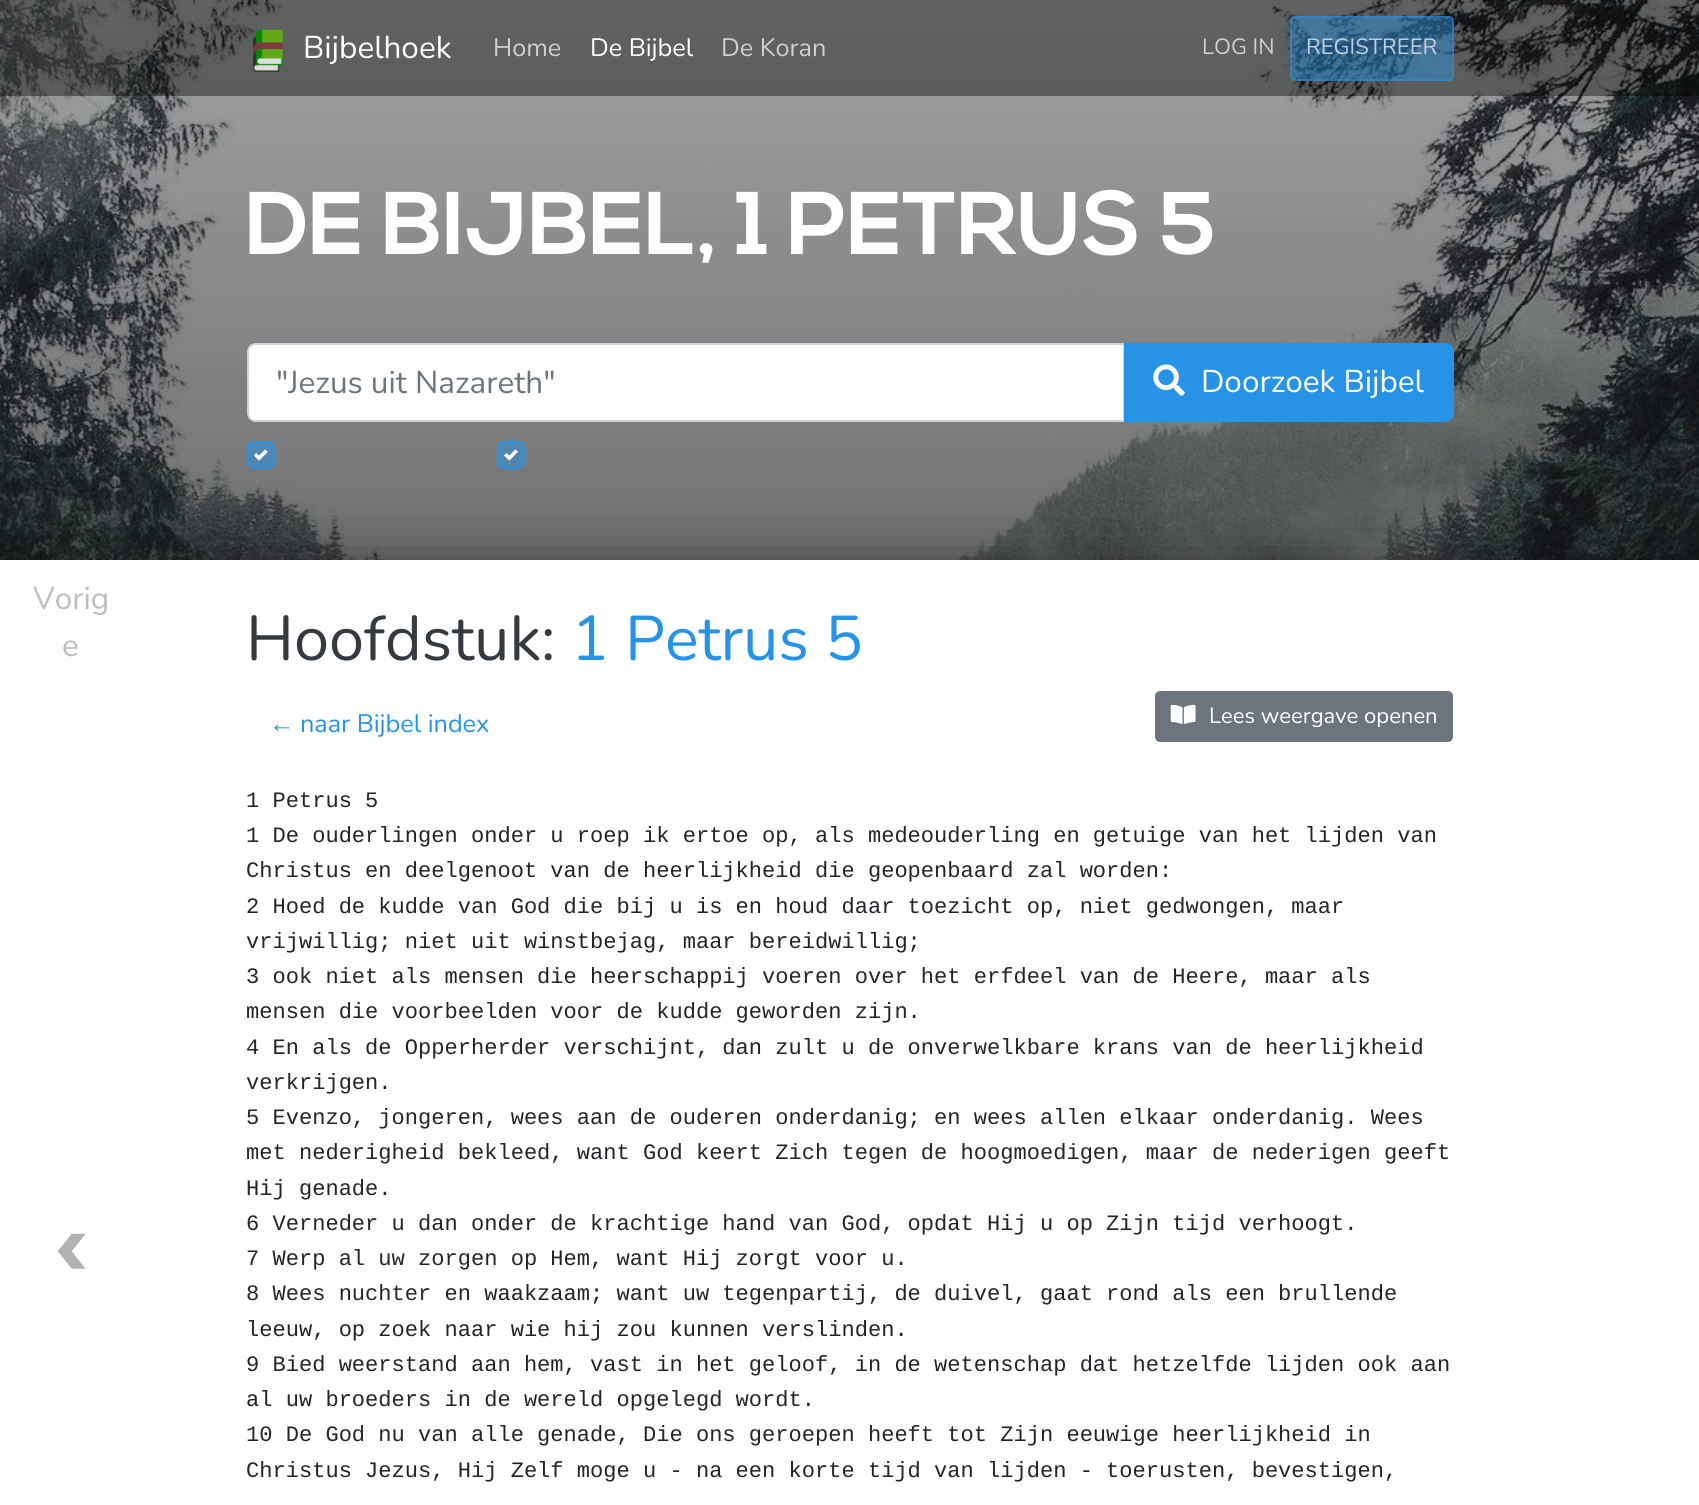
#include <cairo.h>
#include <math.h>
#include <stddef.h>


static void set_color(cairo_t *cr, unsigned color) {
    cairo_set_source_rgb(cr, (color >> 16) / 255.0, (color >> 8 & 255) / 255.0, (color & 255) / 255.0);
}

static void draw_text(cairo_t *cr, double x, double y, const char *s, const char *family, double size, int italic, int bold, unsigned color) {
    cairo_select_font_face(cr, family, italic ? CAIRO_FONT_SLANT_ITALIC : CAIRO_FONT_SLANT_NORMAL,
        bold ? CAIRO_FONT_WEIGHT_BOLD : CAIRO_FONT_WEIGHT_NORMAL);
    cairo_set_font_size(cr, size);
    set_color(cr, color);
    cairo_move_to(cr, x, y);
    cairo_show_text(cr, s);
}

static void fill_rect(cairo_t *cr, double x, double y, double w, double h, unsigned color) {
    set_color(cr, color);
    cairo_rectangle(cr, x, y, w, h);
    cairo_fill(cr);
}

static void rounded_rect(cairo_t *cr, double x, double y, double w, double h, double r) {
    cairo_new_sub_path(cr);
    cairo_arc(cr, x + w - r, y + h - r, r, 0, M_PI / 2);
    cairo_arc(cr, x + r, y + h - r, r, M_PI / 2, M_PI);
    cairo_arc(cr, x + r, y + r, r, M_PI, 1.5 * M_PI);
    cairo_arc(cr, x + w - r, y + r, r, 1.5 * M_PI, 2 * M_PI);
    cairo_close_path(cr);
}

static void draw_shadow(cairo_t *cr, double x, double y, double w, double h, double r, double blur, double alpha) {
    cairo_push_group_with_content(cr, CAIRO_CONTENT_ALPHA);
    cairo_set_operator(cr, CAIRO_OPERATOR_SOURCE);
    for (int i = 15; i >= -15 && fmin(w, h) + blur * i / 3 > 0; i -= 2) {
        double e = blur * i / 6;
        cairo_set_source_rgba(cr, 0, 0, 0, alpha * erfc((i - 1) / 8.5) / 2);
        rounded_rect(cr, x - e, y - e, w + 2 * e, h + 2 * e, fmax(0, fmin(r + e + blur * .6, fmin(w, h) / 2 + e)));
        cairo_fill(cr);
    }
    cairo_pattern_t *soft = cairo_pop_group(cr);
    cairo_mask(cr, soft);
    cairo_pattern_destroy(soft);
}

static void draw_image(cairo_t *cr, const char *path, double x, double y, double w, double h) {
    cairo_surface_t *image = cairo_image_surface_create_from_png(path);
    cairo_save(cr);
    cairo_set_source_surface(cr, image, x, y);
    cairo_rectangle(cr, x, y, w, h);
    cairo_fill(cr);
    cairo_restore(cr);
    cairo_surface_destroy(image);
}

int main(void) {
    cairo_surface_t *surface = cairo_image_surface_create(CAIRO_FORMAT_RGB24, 1699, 1505);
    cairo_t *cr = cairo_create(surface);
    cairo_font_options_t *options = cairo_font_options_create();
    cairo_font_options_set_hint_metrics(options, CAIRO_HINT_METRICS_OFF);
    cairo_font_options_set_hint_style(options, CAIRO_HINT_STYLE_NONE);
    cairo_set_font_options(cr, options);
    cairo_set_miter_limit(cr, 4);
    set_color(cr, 0xFFFFFF);
    cairo_paint(cr);
    draw_image(cr, "assets/img1.png", 0, 0, 1699, 560);
    cairo_set_source_rgba(cr, 0, 0, 0, 0.4);
    cairo_rectangle(cr, 0, 0, 1699, 96);
    cairo_fill(cr);
    draw_image(cr, "assets/img2.png", 253, 29, 30, 43);
    draw_text(cr, 303, 58, "Bijbelhoek", "Nunito ExtraLight", 31.5, 0, 0, 0xFFFFFF);
    draw_text(cr, 493, 56, "Home", "Nunito ExtraLight", 25.25, 0, 0, 0xCFCFCF);
    draw_text(cr, 590, 56, "De Bijbel", "Nunito ExtraLight", 25.25, 0, 0, 0xFFFFFF);
    draw_text(cr, 721, 56, "De Koran", "Nunito ExtraLight", 25.25, 0, 0, 0xCFCFCF);
    draw_text(cr, 1202, 54, "LOG IN", "Nunito ExtraLight", 22.05, 0, 0, 0xCFCFCF);
    cairo_set_source_rgba(cr, 0.153, 0.576, 0.902, 0.45);
    rounded_rect(cr, 1290, 16, 164, 65, 5);
    cairo_fill(cr);
    rounded_rect(cr, 1291, 17, 162, 63, 4);
    cairo_stroke(cr);
    draw_text(cr, 1306, 54, "REGISTREER", "Nunito ExtraLight", 22.05, 0, 0, 0xC1CFDB);
    draw_text(cr, 246, 254, "DE BIJBEL, 1 PETRUS 5", "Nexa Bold", 88.75, 0, 1, 0xFFFFFF);
    cairo_new_path(cr);
    cairo_move_to(cr, 256, 344);
    cairo_line_to(cr, 1124, 344);
    cairo_line_to(cr, 1124, 421);
    cairo_line_to(cr, 256, 421);
    cairo_curve_to(cr, 251.5, 421, 248, 417.5, 248, 413);
    cairo_line_to(cr, 248, 352);
    cairo_curve_to(cr, 248, 347.5, 251.5, 344, 256, 344);
    cairo_close_path(cr);
    cairo_fill_preserve(cr);
    set_color(cr, 0xCED4DA);
    cairo_stroke(cr);
    draw_text(cr, 276, 393, "\"Jezus uit Nazareth\"", "Nunito ExtraLight", 31.5, 0, 0, 0x6C757D);
    set_color(cr, 0x2793E6);
    cairo_new_path(cr);
    cairo_move_to(cr, 1125, 344);
    cairo_line_to(cr, 1445, 344);
    cairo_curve_to(cr, 1449.5, 344, 1453, 347.5, 1453, 352);
    cairo_line_to(cr, 1453, 413);
    cairo_curve_to(cr, 1453, 417.5, 1449.5, 421, 1445, 421);
    cairo_line_to(cr, 1125, 421);
    cairo_close_path(cr);
    cairo_fill_preserve(cr);
    cairo_stroke(cr);
    draw_image(cr, "assets/img3.png", 1153, 364, 32, 32);
    draw_text(cr, 1201, 392, "Doorzoek Bijbel", "Nunito ExtraLight", 31.5, 0, 0, 0xFFFFFF);
    cairo_set_source_rgba(cr, 0.153, 0.576, 0.902, 0.5);
    rounded_rect(cr, 248, 442, 26, 26, 6);
    cairo_fill_preserve(cr);
    set_color(cr, 0x2793E6);
    cairo_stroke(cr);
    draw_image(cr, "assets/img4.png", 254, 449, 14, 12);
    cairo_set_source_rgba(cr, 0.153, 0.576, 0.902, 0.5);
    rounded_rect(cr, 498, 442, 26, 26, 6);
    cairo_fill_preserve(cr);
    set_color(cr, 0x2793E6);
    cairo_stroke(cr);
    draw_image(cr, "assets/img5.png", 504, 449, 14, 12);
    set_color(cr, 0x000000);
    draw_shadow(cr, 0, 560, 1699, 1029, 0, 28, 0.4);
    fill_rect(cr, 0, 560, 1699, 945, 0xFFFFFF);
    draw_image(cr, "assets/img6.png", 57, 1233, 29, 36);
    draw_text(cr, 33, 609, "Vorig", "Nunito ExtraLight", 31.5, 0, 0, 0xBCBEBF);
    draw_text(cr, 62, 656, "e", "Nunito ExtraLight", 31.5, 0, 0, 0xBCBEBF);
    draw_text(cr, 246, 660, "Hoofdstuk:", "Nunito ExtraLight", 63, 0, 0, 0x343A40);
    draw_text(cr, 571, 660, "1 Petrus 5", "Nunito ExtraLight", 63, 0, 0, 0x2793E6);
    draw_text(cr, 269, 732, "←", "Liberation Sans", 25.25, 0, 0, 0x2793E6);
    draw_text(cr, 300, 732, "naar Bijbel index", "Nunito ExtraLight", 25.25, 0, 0, 0x2793E6);
    set_color(cr, 0x6C757D);
    rounded_rect(cr, 1156, 692, 296, 49, 4);
    cairo_fill_preserve(cr);
    cairo_stroke(cr);
    draw_image(cr, "assets/img7.png", 1170, 704, 26, 21);
    draw_text(cr, 1209, 723, "Lees weergave openen", "Nunito ExtraLight", 22.05, 0, 0, 0xFFFFFF);
    draw_text(cr, 246, 807, "1 Petrus 5", "Liberation Mono", 22.05, 0, 0, 0x212529);
    draw_text(cr, 246, 842, "1 De ouderlingen onder u roep ik ertoe op, als medeouderling en getuige van het lijden van", "Liberation Mono", 22.05, 0, 0, 0x212529);
    draw_text(cr, 246, 877, "Christus en deelgenoot van de heerlijkheid die geopenbaard zal worden:", "Liberation Mono", 22.05, 0, 0, 0x212529);
    draw_text(cr, 246, 913, "2 Hoed de kudde van God die bij u is en houd daar toezicht op, niet gedwongen, maar", "Liberation Mono", 22.05, 0, 0, 0x212529);
    draw_text(cr, 246, 948, "vrijwillig; niet uit winstbejag, maar bereidwillig;", "Liberation Mono", 22.05, 0, 0, 0x212529);
    draw_text(cr, 246, 983, "3 ook niet als mensen die heerschappij voeren over het erfdeel van de Heere, maar als", "Liberation Mono", 22.05, 0, 0, 0x212529);
    draw_text(cr, 246, 1018, "mensen die voorbeelden voor de kudde geworden zijn.", "Liberation Mono", 22.05, 0, 0, 0x212529);
    draw_text(cr, 246, 1054, "4 En als de Opperherder verschijnt, dan zult u de onverwelkbare krans van de heerlijkheid", "Liberation Mono", 22.05, 0, 0, 0x212529);
    draw_text(cr, 246, 1089, "verkrijgen.", "Liberation Mono", 22.05, 0, 0, 0x212529);
    draw_text(cr, 246, 1124, "5 Evenzo, jongeren, wees aan de ouderen onderdanig; en wees allen elkaar onderdanig. Wees", "Liberation Mono", 22.05, 0, 0, 0x212529);
    draw_text(cr, 246, 1159, "met nederigheid bekleed, want God keert Zich tegen de hoogmoedigen, maar de nederigen geeft", "Liberation Mono", 22.05, 0, 0, 0x212529);
    draw_text(cr, 246, 1195, "Hij genade.", "Liberation Mono", 22.05, 0, 0, 0x212529);
    draw_text(cr, 246, 1230, "6 Verneder u dan onder de krachtige hand van God, opdat Hij u op Zijn tijd verhoogt.", "Liberation Mono", 22.05, 0, 0, 0x212529);
    draw_text(cr, 246, 1265, "7 Werp al uw zorgen op Hem, want Hij zorgt voor u.", "Liberation Mono", 22.05, 0, 0, 0x212529);
    draw_text(cr, 246, 1300, "8 Wees nuchter en waakzaam; want uw tegenpartij, de duivel, gaat rond als een brullende", "Liberation Mono", 22.05, 0, 0, 0x212529);
    draw_text(cr, 246, 1336, "leeuw, op zoek naar wie hij zou kunnen verslinden.", "Liberation Mono", 22.05, 0, 0, 0x212529);
    draw_text(cr, 246, 1371, "9 Bied weerstand aan hem, vast in het geloof, in de wetenschap dat hetzelfde lijden ook aan", "Liberation Mono", 22.05, 0, 0, 0x212529);
    draw_text(cr, 246, 1406, "al uw broeders in de wereld opgelegd wordt.", "Liberation Mono", 22.05, 0, 0, 0x212529);
    draw_text(cr, 246, 1441, "10 De God nu van alle genade, Die ons geroepen heeft tot Zijn eeuwige heerlijkheid in", "Liberation Mono", 22.05, 0, 0, 0x212529);
    draw_text(cr, 246, 1477, "Christus Jezus, Hij Zelf moge u - na een korte tijd van lijden - toerusten, bevestigen,", "Liberation Mono", 22.05, 0, 0, 0x212529);
    cairo_surface_write_to_png(surface, "output.png");
    cairo_font_options_destroy(options);
    cairo_destroy(cr);
    cairo_surface_destroy(surface);
    return 0;
}
